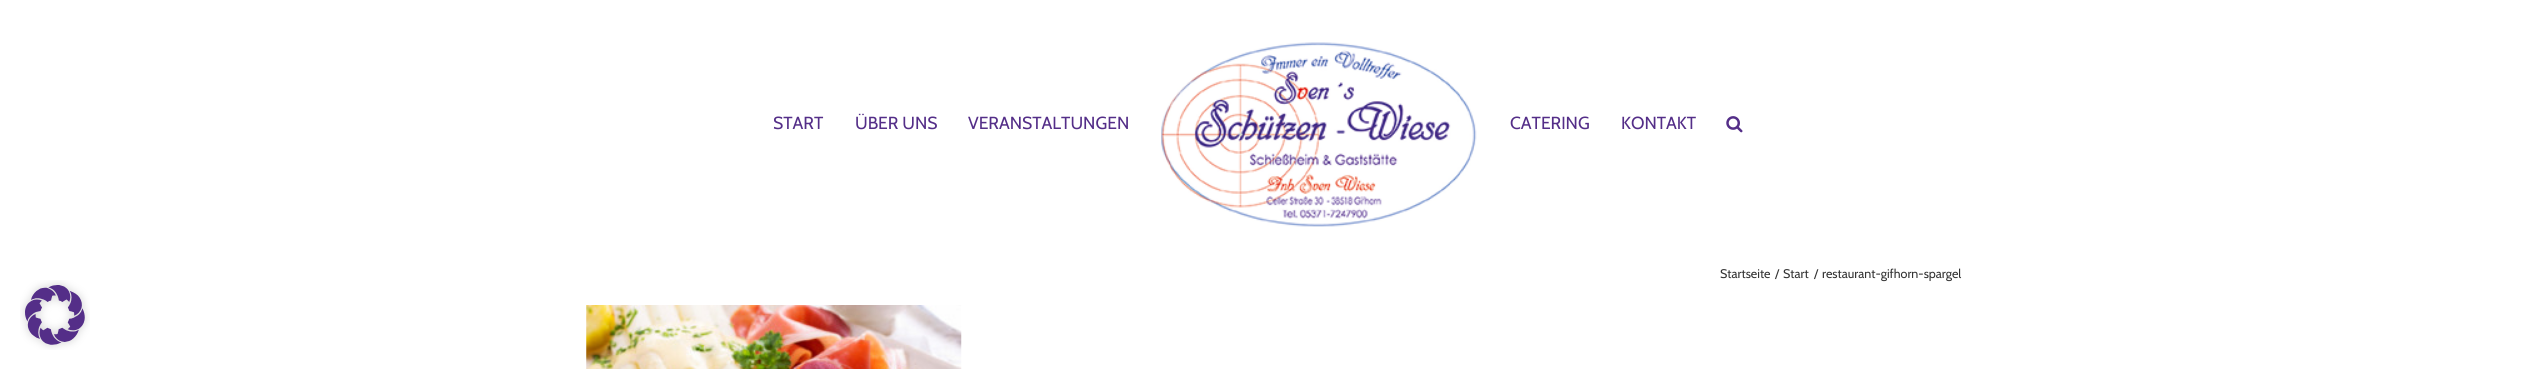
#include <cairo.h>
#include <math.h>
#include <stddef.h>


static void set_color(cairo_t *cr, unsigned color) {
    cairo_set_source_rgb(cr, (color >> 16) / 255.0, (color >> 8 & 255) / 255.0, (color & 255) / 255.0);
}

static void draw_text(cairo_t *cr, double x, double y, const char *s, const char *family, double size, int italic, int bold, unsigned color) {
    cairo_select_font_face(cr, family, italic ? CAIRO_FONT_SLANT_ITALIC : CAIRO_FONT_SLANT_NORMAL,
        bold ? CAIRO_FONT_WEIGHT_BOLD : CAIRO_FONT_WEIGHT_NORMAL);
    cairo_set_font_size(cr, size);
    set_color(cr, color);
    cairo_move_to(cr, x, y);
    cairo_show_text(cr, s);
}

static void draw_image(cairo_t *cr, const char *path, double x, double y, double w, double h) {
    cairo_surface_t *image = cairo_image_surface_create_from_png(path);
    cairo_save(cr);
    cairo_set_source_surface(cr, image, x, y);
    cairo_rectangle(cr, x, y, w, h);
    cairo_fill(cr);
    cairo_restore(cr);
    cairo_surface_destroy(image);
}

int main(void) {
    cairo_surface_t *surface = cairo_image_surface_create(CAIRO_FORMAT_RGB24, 2547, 369);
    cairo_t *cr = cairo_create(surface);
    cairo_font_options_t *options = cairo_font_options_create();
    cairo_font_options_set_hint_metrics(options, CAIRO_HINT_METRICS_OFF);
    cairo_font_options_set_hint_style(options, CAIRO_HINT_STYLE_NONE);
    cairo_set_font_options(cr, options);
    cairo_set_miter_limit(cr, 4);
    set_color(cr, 0xFFFFFF);
    cairo_paint(cr);
    draw_text(cr, 773, 129, "START", "Cabin", 17.5, 0, 0, 0x542E88);
    draw_text(cr, 855, 129, "ÜBER UNS", "Cabin", 17.5, 0, 0, 0x542E88);
    draw_text(cr, 968, 129, "VERANSTALTUNGEN", "Cabin", 17.5, 0, 0, 0x542E88);
    draw_image(cr, "assets/img1.png", 1161, 42, 316, 185);
    draw_text(cr, 1510, 129, "CATERING", "Cabin", 17.5, 0, 0, 0x542E88);
    draw_text(cr, 1621, 129, "KONTAKT", "Cabin", 17.5, 0, 0, 0x542E88);
    draw_image(cr, "assets/img2.png", 1726, 116, 17, 17);
    draw_text(cr, 1720, 278, "Startseite", "Cabin", 12.5, 0, 0, 0x333333);
    draw_text(cr, 1775, 278, "/", "Cabin", 12.5, 0, 0, 0x333333);
    draw_text(cr, 1783, 278, "Start", "Cabin", 12.5, 0, 0, 0x333333);
    draw_text(cr, 1814, 278, "/", "Cabin", 12.5, 0, 0, 0x333333);
    draw_text(cr, 1822, 278, "restaurant-gifhorn-spargel", "Cabin", 12.5, 0, 0, 0x333333);
    draw_image(cr, "assets/img3.png", 586, 305, 376, 64);
    draw_image(cr, "assets/img4.png", 20, 280, 70, 70);
    cairo_surface_write_to_png(surface, "output.png");
    cairo_font_options_destroy(options);
    cairo_destroy(cr);
    cairo_surface_destroy(surface);
    return 0;
}
